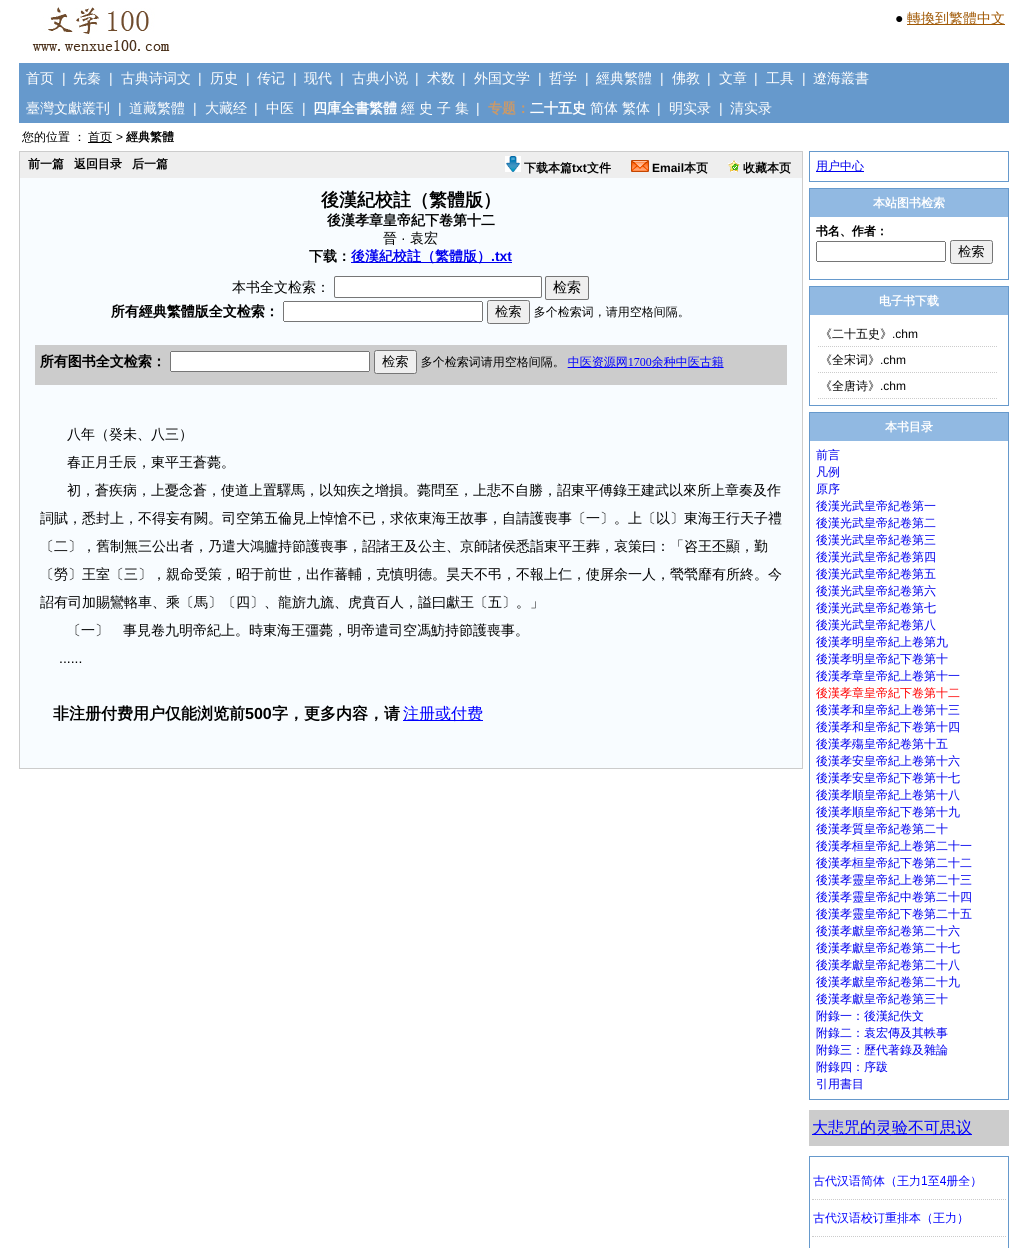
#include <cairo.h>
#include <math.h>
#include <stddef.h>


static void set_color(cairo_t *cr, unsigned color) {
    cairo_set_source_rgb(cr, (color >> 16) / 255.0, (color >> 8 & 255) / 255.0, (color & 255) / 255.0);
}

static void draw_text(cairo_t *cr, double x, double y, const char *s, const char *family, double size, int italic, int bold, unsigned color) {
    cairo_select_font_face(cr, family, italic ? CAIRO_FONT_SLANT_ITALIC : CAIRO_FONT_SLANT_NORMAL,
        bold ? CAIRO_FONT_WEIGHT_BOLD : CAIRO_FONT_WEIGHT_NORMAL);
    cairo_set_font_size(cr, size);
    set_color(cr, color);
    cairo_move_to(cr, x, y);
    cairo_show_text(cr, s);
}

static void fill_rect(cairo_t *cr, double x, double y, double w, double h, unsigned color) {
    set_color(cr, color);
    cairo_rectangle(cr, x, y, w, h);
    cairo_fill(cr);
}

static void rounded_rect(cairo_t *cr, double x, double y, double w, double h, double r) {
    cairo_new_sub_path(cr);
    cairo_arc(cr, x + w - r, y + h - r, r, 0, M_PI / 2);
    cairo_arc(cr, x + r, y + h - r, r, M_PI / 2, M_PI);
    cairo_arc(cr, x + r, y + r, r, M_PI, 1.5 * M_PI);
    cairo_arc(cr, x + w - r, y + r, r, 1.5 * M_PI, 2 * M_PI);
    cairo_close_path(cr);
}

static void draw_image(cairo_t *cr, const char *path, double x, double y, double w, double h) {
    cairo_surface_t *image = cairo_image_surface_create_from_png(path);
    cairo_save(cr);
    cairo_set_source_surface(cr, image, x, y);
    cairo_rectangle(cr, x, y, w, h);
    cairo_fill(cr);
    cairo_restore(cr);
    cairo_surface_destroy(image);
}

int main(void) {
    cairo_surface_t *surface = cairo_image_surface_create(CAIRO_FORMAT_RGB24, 1027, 1248);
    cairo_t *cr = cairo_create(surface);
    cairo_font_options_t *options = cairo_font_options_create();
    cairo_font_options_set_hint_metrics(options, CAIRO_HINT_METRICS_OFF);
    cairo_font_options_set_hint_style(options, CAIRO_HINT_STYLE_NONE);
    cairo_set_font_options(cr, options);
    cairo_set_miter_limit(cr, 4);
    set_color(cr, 0xFFFFFF);
    cairo_paint(cr);
    draw_image(cr, "assets/img1.png", 32, 6, 138, 48);
    draw_text(cr, 895, 23, "●", "Liberation Sans", 14, 0, 0, 0x000000);
    fill_rect(cr, 907, 24, 98, 1, 0xA05804);
    draw_text(cr, 907, 23, "轉換到繁體中文", "WenQuanYi Zen Hei Medium", 14, 0, 0, 0xA05804);
    fill_rect(cr, 19, 63, 990, 60, 0x6699CC);
    draw_text(cr, 26, 83, "首页", "WenQuanYi Zen Hei Medium", 14, 0, 0, 0xFFFFFF);
    draw_text(cr, 62, 83, "|", "Liberation Sans", 14, 0, 0, 0xFFFFFF);
    draw_text(cr, 73, 83, "先秦", "WenQuanYi Zen Hei Medium", 14, 0, 0, 0xFFFFFF);
    draw_text(cr, 109, 83, "|", "Liberation Sans", 14, 0, 0, 0xFFFFFF);
    draw_text(cr, 121, 83, "古典诗词文", "WenQuanYi Zen Hei Medium", 14, 0, 0, 0xFFFFFF);
    draw_text(cr, 198, 83, "|", "Liberation Sans", 14, 0, 0, 0xFFFFFF);
    draw_text(cr, 210, 83, "历史", "WenQuanYi Zen Hei Medium", 14, 0, 0, 0xFFFFFF);
    draw_text(cr, 246, 83, "|", "Liberation Sans", 14, 0, 0, 0xFFFFFF);
    draw_text(cr, 257, 83, "传记", "WenQuanYi Zen Hei Medium", 14, 0, 0, 0xFFFFFF);
    draw_text(cr, 293, 83, "|", "Liberation Sans", 14, 0, 0, 0xFFFFFF);
    draw_text(cr, 304, 83, "现代", "WenQuanYi Zen Hei Medium", 14, 0, 0, 0xFFFFFF);
    draw_text(cr, 340, 83, "|", "Liberation Sans", 14, 0, 0, 0xFFFFFF);
    draw_text(cr, 352, 83, "古典小说", "WenQuanYi Zen Hei Medium", 14, 0, 0, 0xFFFFFF);
    draw_text(cr, 415, 83, "|", "Liberation Sans", 14, 0, 0, 0xFFFFFF);
    draw_text(cr, 427, 83, "术数", "WenQuanYi Zen Hei Medium", 14, 0, 0, 0xFFFFFF);
    draw_text(cr, 462, 83, "|", "Liberation Sans", 14, 0, 0, 0xFFFFFF);
    draw_text(cr, 474, 83, "外国文学", "WenQuanYi Zen Hei Medium", 14, 0, 0, 0xFFFFFF);
    draw_text(cr, 538, 83, "|", "Liberation Sans", 14, 0, 0, 0xFFFFFF);
    draw_text(cr, 549, 83, "哲学", "WenQuanYi Zen Hei Medium", 14, 0, 0, 0xFFFFFF);
    draw_text(cr, 585, 83, "|", "Liberation Sans", 14, 0, 0, 0xFFFFFF);
    draw_text(cr, 596, 83, "經典繁體", "WenQuanYi Zen Hei Medium", 14, 0, 0, 0xFFFFFF);
    draw_text(cr, 660, 83, "|", "Liberation Sans", 14, 0, 0, 0xFFFFFF);
    draw_text(cr, 672, 83, "佛教", "WenQuanYi Zen Hei Medium", 14, 0, 0, 0xFFFFFF);
    draw_text(cr, 707, 83, "|", "Liberation Sans", 14, 0, 0, 0xFFFFFF);
    draw_text(cr, 719, 83, "文章", "WenQuanYi Zen Hei Medium", 14, 0, 0, 0xFFFFFF);
    draw_text(cr, 754, 83, "|", "Liberation Sans", 14, 0, 0, 0xFFFFFF);
    draw_text(cr, 766, 83, "工具", "WenQuanYi Zen Hei Medium", 14, 0, 0, 0xFFFFFF);
    draw_text(cr, 802, 83, "|", "Liberation Sans", 14, 0, 0, 0xFFFFFF);
    draw_text(cr, 813, 83, "遼海叢書", "WenQuanYi Zen Hei Medium", 14, 0, 0, 0xFFFFFF);
    draw_text(cr, 26, 113, "臺灣文獻叢刊", "WenQuanYi Zen Hei Medium", 14, 0, 0, 0xFFFFFF);
    draw_text(cr, 118, 113, "|", "Liberation Sans", 14, 0, 0, 0xFFFFFF);
    draw_text(cr, 129, 113, "道藏繁體", "WenQuanYi Zen Hei Medium", 14, 0, 0, 0xFFFFFF);
    draw_text(cr, 193, 113, "|", "Liberation Sans", 14, 0, 0, 0xFFFFFF);
    draw_text(cr, 205, 113, "大藏经", "WenQuanYi Zen Hei Medium", 14, 0, 0, 0xFFFFFF);
    draw_text(cr, 254, 113, "|", "Liberation Sans", 14, 0, 0, 0xFFFFFF);
    draw_text(cr, 266, 113, "中医", "WenQuanYi Zen Hei Medium", 14, 0, 0, 0xFFFFFF);
    draw_text(cr, 302, 113, "|", "Liberation Sans", 14, 0, 0, 0xFFFFFF);
    draw_text(cr, 313, 113, "四庫全書繁體", "WenQuanYi Zen Hei", 14, 0, 1, 0xFFFFFF);
    draw_text(cr, 401, 113, "經", "WenQuanYi Zen Hei Medium", 14, 0, 0, 0xFFFFFF);
    draw_text(cr, 419, 113, "史", "WenQuanYi Zen Hei Medium", 14, 0, 0, 0xFFFFFF);
    draw_text(cr, 437, 113, "子", "WenQuanYi Zen Hei Medium", 14, 0, 0, 0xFFFFFF);
    draw_text(cr, 455, 113, "集", "WenQuanYi Zen Hei Medium", 14, 0, 0, 0xFFFFFF);
    draw_text(cr, 476, 113, "|", "Liberation Sans", 14, 0, 0, 0xFFFFFF);
    draw_text(cr, 488, 113, "专题：", "WenQuanYi Zen Hei", 14, 0, 1, 0xCC9966);
    draw_text(cr, 530, 113, "二十五史", "WenQuanYi Zen Hei", 14, 0, 1, 0xFFFFFF);
    draw_text(cr, 590, 113, "简体", "WenQuanYi Zen Hei Medium", 14, 0, 0, 0xFFFFFF);
    draw_text(cr, 622, 113, "繁体", "WenQuanYi Zen Hei Medium", 14, 0, 0, 0xFFFFFF);
    draw_text(cr, 657, 113, "|", "Liberation Sans", 14, 0, 0, 0xFFFFFF);
    draw_text(cr, 669, 113, "明实录", "WenQuanYi Zen Hei Medium", 14, 0, 0, 0xFFFFFF);
    draw_text(cr, 719, 113, "|", "Liberation Sans", 14, 0, 0, 0xFFFFFF);
    draw_text(cr, 730, 113, "清实录", "WenQuanYi Zen Hei Medium", 14, 0, 0, 0xFFFFFF);
    draw_text(cr, 22, 141, "您的位置 ：", "WenQuanYi Zen Hei Medium", 12, 0, 0, 0x000000);
    fill_rect(cr, 88, 142, 24, 1, 0x000000);
    draw_text(cr, 88, 141, "首页", "WenQuanYi Zen Hei Medium", 12, 0, 0, 0x000000);
    draw_text(cr, 116, 141, ">", "Liberation Sans", 12, 0, 0, 0x000000);
    draw_text(cr, 126, 141, "經典繁體", "WenQuanYi Zen Hei", 12, 0, 1, 0x000000);
    fill_rect(cr, 20, 178, 782, 590, 0xF8FCFF);
    cairo_rectangle(cr, 19.5, 151.5, 783, 617);
    set_color(cr, 0xCCCCCC);
    cairo_set_line_width(cr, 1);
    cairo_stroke(cr);
    fill_rect(cr, 20, 152, 782, 26, 0xEEEEEE);
    draw_text(cr, 28, 168, "前一篇", "WenQuanYi Zen Hei", 12, 0, 1, 0x000000);
    draw_text(cr, 74, 168, "返回目录", "WenQuanYi Zen Hei", 12, 0, 1, 0x000000);
    draw_text(cr, 132, 168, "后一篇", "WenQuanYi Zen Hei", 12, 0, 1, 0x000000);
    draw_image(cr, "assets/img2.png", 505, 156, 16, 16);
    draw_text(cr, 524, 172, "下载本篇", "WenQuanYi Zen Hei", 12, 0, 1, 0x000000);
    draw_text(cr, 572, 172, "txt", "Liberation Sans", 12, 0, 1, 0x000000);
    draw_text(cr, 587, 172, "文件", "WenQuanYi Zen Hei", 12, 0, 1, 0x000000);
    draw_image(cr, "assets/img3.png", 631, 160, 18, 12);
    draw_text(cr, 652, 172, "Email", "Liberation Sans", 12, 0, 1, 0x000000);
    draw_text(cr, 684, 172, "本页", "WenQuanYi Zen Hei", 12, 0, 1, 0x000000);
    draw_image(cr, "assets/img4.png", 728, 160, 12, 12);
    draw_text(cr, 743, 172, "收藏本页", "WenQuanYi Zen Hei", 12, 0, 1, 0x000000);
    draw_text(cr, 321, 206, "後漢紀校註（繁體版）", "WenQuanYi Zen Hei", 18, 0, 1, 0x000000);
    draw_text(cr, 327, 225, "後漢孝章皇帝紀下卷第十二", "WenQuanYi Zen Hei", 14, 0, 1, 0x000000);
    draw_text(cr, 383, 243, "晉", "WenQuanYi Zen Hei Medium", 14, 0, 0, 0x000000);
    draw_text(cr, 401, 243, "·", "Liberation Sans", 14, 0, 0, 0x000000);
    draw_text(cr, 410, 243, "袁宏", "WenQuanYi Zen Hei Medium", 14, 0, 0, 0x000000);
    draw_text(cr, 309, 261, "下载：", "WenQuanYi Zen Hei", 14, 0, 1, 0x000000);
    fill_rect(cr, 351, 262, 161, 1, 0x0000EE);
    draw_text(cr, 351, 261, "後漢紀校註（繁體版）", "WenQuanYi Zen Hei", 14, 0, 1, 0x0000EE);
    draw_text(cr, 491, 261, ".txt", "Liberation Sans", 14, 0, 1, 0x0000EE);
    draw_text(cr, 232, 292, "本书全文检索：", "WenQuanYi Zen Hei Medium", 14, 0, 0, 0x000000);
    set_color(cr, 0xFFFFFF);
    rounded_rect(cr, 334.5, 276.5, 207, 21, 1.5);
    cairo_fill_preserve(cr);
    set_color(cr, 0x767676);
    cairo_stroke(cr);
    set_color(cr, 0xEFEFEF);
    rounded_rect(cr, 545.5, 276.5, 43, 23, 1.5);
    cairo_fill_preserve(cr);
    set_color(cr, 0x767676);
    cairo_stroke(cr);
    draw_text(cr, 553, 292, "检索", "WenQuanYi Zen Hei Medium", 14, 0, 0, 0x000000);
    draw_image(cr, "assets/img5.png", 111, 300, 571, 24);
    fill_rect(cr, 35, 345, 752, 40, 0xCCCCCC);
    draw_image(cr, "assets/img6.png", 40, 350, 684, 24);
    draw_text(cr, 67, 439, "八年（癸未、八三）", "WenQuanYi Zen Hei Medium", 14, 0, 0, 0x000000);
    draw_text(cr, 67, 467, "春正月壬辰，東平王蒼薨。", "WenQuanYi Zen Hei Medium", 14, 0, 0, 0x000000);
    draw_text(cr, 67, 495, "初，蒼疾病，上憂念蒼，使道上置驛馬，以知疾之增損。薨問至，上悲不自勝，詔東平傅錄王建武以來所上章奏及作", "WenQuanYi Zen Hei Medium", 14, 0, 0, 0x000000);
    draw_text(cr, 40, 523, "詞賦，悉封上，不得妄有闕。司空第五倫見上悼愴不已，求依東海王故事，自請護喪事〔一〕。上〔以〕東海王行天子禮", "WenQuanYi Zen Hei Medium", 14, 0, 0, 0x000000);
    draw_text(cr, 40, 551, "〔二〕，舊制無三公出者，乃遣大鴻臚持節護喪事，詔諸王及公主、京師諸侯悉詣東平王葬，哀策曰：「咨王丕顯，勤", "WenQuanYi Zen Hei Medium", 14, 0, 0, 0x000000);
    draw_text(cr, 40, 579, "〔勞〕王室〔三〕，親命受策，昭于前世，出作蕃輔，克慎明德。昊天不弔，不報上仁，使屏余一人，煢煢靡有所終。今", "WenQuanYi Zen Hei Medium", 14, 0, 0, 0x000000);
    draw_text(cr, 40, 607, "詔有司加賜鸞輅車、乘〔馬〕〔四〕、龍旂九旒、虎賁百人，謚曰獻王〔五〕。」", "WenQuanYi Zen Hei Medium", 14, 0, 0, 0x000000);
    draw_text(cr, 67, 635, "〔一〕　事見卷九明帝紀上。時東海王彊薨，明帝遣司空馮魴持節護喪事。", "WenQuanYi Zen Hei Medium", 14, 0, 0, 0x000000);
    draw_text(cr, 59, 663, "......", "Liberation Sans", 14, 0, 0, 0x000000);
    draw_text(cr, 53, 719, "非注册付费用户仅能浏览前", "WenQuanYi Zen Hei", 16, 0, 1, 0x000000);
    draw_text(cr, 245, 719, "500", "Liberation Sans", 16, 0, 1, 0x000000);
    draw_text(cr, 272, 719, "字，更多内容，请", "WenQuanYi Zen Hei", 16, 0, 1, 0x000000);
    fill_rect(cr, 403, 720, 80, 1, 0x0000FF);
    draw_text(cr, 403, 719, "注册或付费", "WenQuanYi Zen Hei Medium", 16, 0, 0, 0x0000FF);
    cairo_rectangle(cr, 809.5, 151.5, 199, 30);
    set_color(cr, 0x6699CC);
    cairo_stroke(cr);
    fill_rect(cr, 816, 171, 48, 1, 0x0000EE);
    draw_text(cr, 816, 170, "用户中心", "WenQuanYi Zen Hei Medium", 12, 0, 0, 0x0000EE);
    cairo_rectangle(cr, 809.5, 188.5, 199, 91);
    set_color(cr, 0x6699CC);
    cairo_stroke(cr);
    fill_rect(cr, 810, 189, 198, 28, 0x91B9E2);
    draw_text(cr, 873, 207, "本站图书检索", "WenQuanYi Zen Hei", 12, 0, 1, 0xFFFFFF);
    draw_image(cr, "assets/img7.png", 816, 224, 177, 40);
    cairo_rectangle(cr, 809.5, 286.5, 199, 119);
    set_color(cr, 0x6699CC);
    cairo_stroke(cr);
    fill_rect(cr, 810, 287, 198, 28, 0x91B9E2);
    draw_text(cr, 879, 305, "电子书下载", "WenQuanYi Zen Hei", 12, 0, 1, 0xFFFFFF);
    cairo_new_path(cr);
    cairo_move_to(cr, 818, 346.5);
    cairo_line_to(cr, 998, 346.5);
    set_color(cr, 0xCCCCCC);
    cairo_set_dash(cr, (double[]){1, 1}, 2, 0);
    cairo_stroke(cr);
    draw_text(cr, 820, 338, "《二十五史》", "WenQuanYi Zen Hei Medium", 12, 0, 0, 0x000000);
    draw_text(cr, 892, 338, ".chm", "Liberation Sans", 12, 0, 0, 0x000000);
    cairo_new_path(cr);
    cairo_move_to(cr, 818, 372.5);
    cairo_line_to(cr, 998, 372.5);
    set_color(cr, 0xCCCCCC);
    cairo_stroke(cr);
    draw_text(cr, 820, 364, "《全宋词》", "WenQuanYi Zen Hei Medium", 12, 0, 0, 0x000000);
    draw_text(cr, 880, 364, ".chm", "Liberation Sans", 12, 0, 0, 0x000000);
    cairo_new_path(cr);
    cairo_move_to(cr, 818, 398.5);
    cairo_line_to(cr, 998, 398.5);
    set_color(cr, 0xCCCCCC);
    cairo_stroke(cr);
    draw_text(cr, 820, 390, "《全唐诗》", "WenQuanYi Zen Hei Medium", 12, 0, 0, 0x000000);
    draw_text(cr, 880, 390, ".chm", "Liberation Sans", 12, 0, 0, 0x000000);
    cairo_rectangle(cr, 809.5, 412.5, 199, 687);
    set_color(cr, 0x6699CC);
    cairo_set_dash(cr, NULL, 0, 0);
    cairo_stroke(cr);
    fill_rect(cr, 810, 413, 198, 28, 0x91B9E2);
    draw_text(cr, 885, 431, "本书目录", "WenQuanYi Zen Hei", 12, 0, 1, 0xFFFFFF);
    draw_text(cr, 816, 459, "前言", "WenQuanYi Zen Hei Medium", 12, 0, 0, 0x0000EE);
    draw_text(cr, 816, 476, "凡例", "WenQuanYi Zen Hei Medium", 12, 0, 0, 0x0000EE);
    draw_text(cr, 816, 493, "原序", "WenQuanYi Zen Hei Medium", 12, 0, 0, 0x0000EE);
    draw_text(cr, 816, 510, "後漢光武皇帝紀卷第一", "WenQuanYi Zen Hei Medium", 12, 0, 0, 0x0000EE);
    draw_text(cr, 816, 527, "後漢光武皇帝紀卷第二", "WenQuanYi Zen Hei Medium", 12, 0, 0, 0x0000EE);
    draw_text(cr, 816, 544, "後漢光武皇帝紀卷第三", "WenQuanYi Zen Hei Medium", 12, 0, 0, 0x0000EE);
    draw_text(cr, 816, 561, "後漢光武皇帝紀卷第四", "WenQuanYi Zen Hei Medium", 12, 0, 0, 0x0000EE);
    draw_text(cr, 816, 578, "後漢光武皇帝紀卷第五", "WenQuanYi Zen Hei Medium", 12, 0, 0, 0x0000EE);
    draw_text(cr, 816, 595, "後漢光武皇帝紀卷第六", "WenQuanYi Zen Hei Medium", 12, 0, 0, 0x0000EE);
    draw_text(cr, 816, 612, "後漢光武皇帝紀卷第七", "WenQuanYi Zen Hei Medium", 12, 0, 0, 0x0000EE);
    draw_text(cr, 816, 629, "後漢光武皇帝紀卷第八", "WenQuanYi Zen Hei Medium", 12, 0, 0, 0x0000EE);
    draw_text(cr, 816, 646, "後漢孝明皇帝紀上卷第九", "WenQuanYi Zen Hei Medium", 12, 0, 0, 0x0000EE);
    draw_text(cr, 816, 663, "後漢孝明皇帝紀下卷第十", "WenQuanYi Zen Hei Medium", 12, 0, 0, 0x0000EE);
    draw_text(cr, 816, 680, "後漢孝章皇帝紀上卷第十一", "WenQuanYi Zen Hei Medium", 12, 0, 0, 0x0000EE);
    draw_text(cr, 816, 697, "後漢孝章皇帝紀下卷第十二", "WenQuanYi Zen Hei Medium", 12, 0, 0, 0xFF0000);
    draw_text(cr, 816, 714, "後漢孝和皇帝紀上卷第十三", "WenQuanYi Zen Hei Medium", 12, 0, 0, 0x0000EE);
    draw_text(cr, 816, 731, "後漢孝和皇帝紀下卷第十四", "WenQuanYi Zen Hei Medium", 12, 0, 0, 0x0000EE);
    draw_text(cr, 816, 748, "後漢孝殤皇帝紀卷第十五", "WenQuanYi Zen Hei Medium", 12, 0, 0, 0x0000EE);
    draw_text(cr, 816, 765, "後漢孝安皇帝紀上卷第十六", "WenQuanYi Zen Hei Medium", 12, 0, 0, 0x0000EE);
    draw_text(cr, 816, 782, "後漢孝安皇帝紀下卷第十七", "WenQuanYi Zen Hei Medium", 12, 0, 0, 0x0000EE);
    draw_text(cr, 816, 799, "後漢孝順皇帝紀上卷第十八", "WenQuanYi Zen Hei Medium", 12, 0, 0, 0x0000EE);
    draw_text(cr, 816, 816, "後漢孝順皇帝紀下卷第十九", "WenQuanYi Zen Hei Medium", 12, 0, 0, 0x0000EE);
    draw_text(cr, 816, 833, "後漢孝質皇帝紀卷第二十", "WenQuanYi Zen Hei Medium", 12, 0, 0, 0x0000EE);
    draw_text(cr, 816, 850, "後漢孝桓皇帝紀上卷第二十一", "WenQuanYi Zen Hei Medium", 12, 0, 0, 0x0000EE);
    draw_text(cr, 816, 867, "後漢孝桓皇帝紀下卷第二十二", "WenQuanYi Zen Hei Medium", 12, 0, 0, 0x0000EE);
    draw_text(cr, 816, 884, "後漢孝靈皇帝紀上卷第二十三", "WenQuanYi Zen Hei Medium", 12, 0, 0, 0x0000EE);
    draw_text(cr, 816, 901, "後漢孝靈皇帝紀中卷第二十四", "WenQuanYi Zen Hei Medium", 12, 0, 0, 0x0000EE);
    draw_text(cr, 816, 918, "後漢孝靈皇帝紀下卷第二十五", "WenQuanYi Zen Hei Medium", 12, 0, 0, 0x0000EE);
    draw_text(cr, 816, 935, "後漢孝獻皇帝紀卷第二十六", "WenQuanYi Zen Hei Medium", 12, 0, 0, 0x0000EE);
    draw_text(cr, 816, 952, "後漢孝獻皇帝紀卷第二十七", "WenQuanYi Zen Hei Medium", 12, 0, 0, 0x0000EE);
    draw_text(cr, 816, 969, "後漢孝獻皇帝紀卷第二十八", "WenQuanYi Zen Hei Medium", 12, 0, 0, 0x0000EE);
    draw_text(cr, 816, 986, "後漢孝獻皇帝紀卷第二十九", "WenQuanYi Zen Hei Medium", 12, 0, 0, 0x0000EE);
    draw_text(cr, 816, 1003, "後漢孝獻皇帝紀卷第三十", "WenQuanYi Zen Hei Medium", 12, 0, 0, 0x0000EE);
    draw_text(cr, 816, 1020, "附錄一：後漢紀佚文", "WenQuanYi Zen Hei Medium", 12, 0, 0, 0x0000EE);
    draw_text(cr, 816, 1037, "附錄二：袁宏傳及其軼事", "WenQuanYi Zen Hei Medium", 12, 0, 0, 0x0000EE);
    draw_text(cr, 816, 1054, "附錄三：歷代著錄及雜論", "WenQuanYi Zen Hei Medium", 12, 0, 0, 0x0000EE);
    draw_text(cr, 816, 1071, "附錄四：序跋", "WenQuanYi Zen Hei Medium", 12, 0, 0, 0x0000EE);
    draw_text(cr, 816, 1088, "引用書目", "WenQuanYi Zen Hei Medium", 12, 0, 0, 0x0000EE);
    fill_rect(cr, 809, 1110, 200, 36, 0xCCCCCC);
    fill_rect(cr, 812, 1134, 160, 1, 0x0000FF);
    draw_text(cr, 812, 1133, "大悲咒的灵验不可思议", "WenQuanYi Zen Hei Medium", 16, 0, 0, 0x0000FF);
    cairo_rectangle(cr, 809.5, 1156.5, 199, 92);
    set_color(cr, 0x6699CC);
    cairo_stroke(cr);
    draw_image(cr, "assets/img8.png", 812, 1175, 194, 62);
    cairo_surface_write_to_png(surface, "output.png");
    cairo_font_options_destroy(options);
    cairo_destroy(cr);
    cairo_surface_destroy(surface);
    return 0;
}
